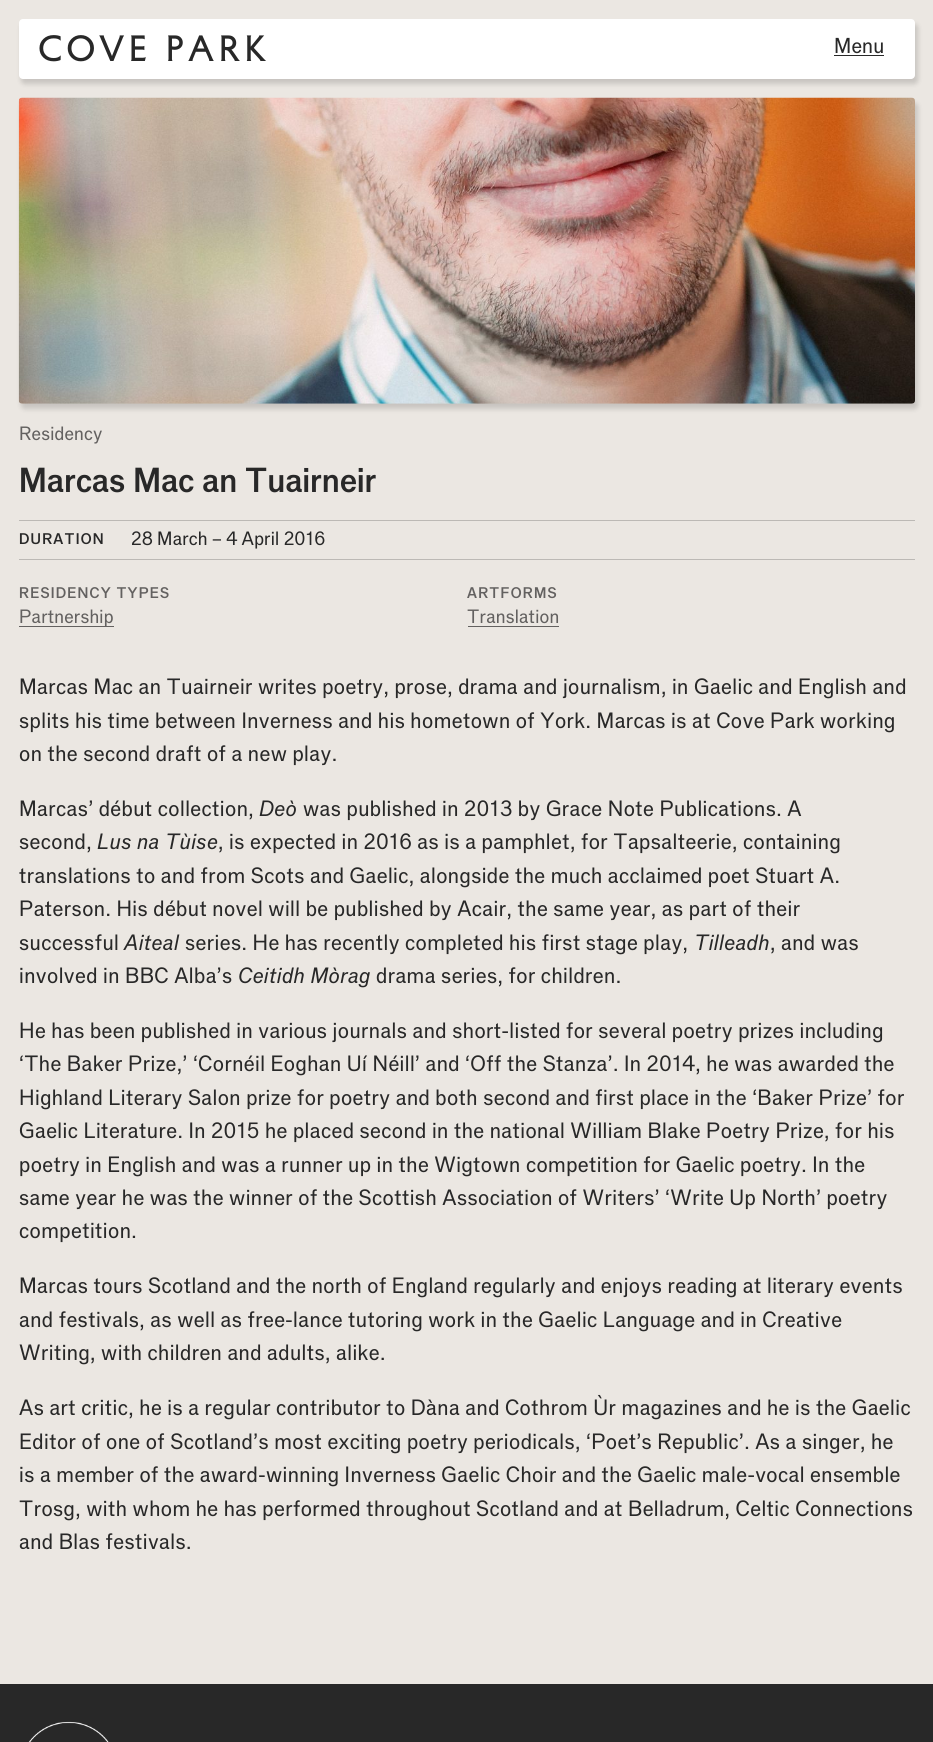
#include <cairo.h>
#include <math.h>
#include <stddef.h>


static void set_color(cairo_t *cr, unsigned color) {
    cairo_set_source_rgb(cr, (color >> 16) / 255.0, (color >> 8 & 255) / 255.0, (color & 255) / 255.0);
}

static void draw_spaced(cairo_t *cr, double x, double y, const char *s, double letter, double word) {
    cairo_move_to(cr, x, y);
    while (*s) {
        char ch[5] = {0};
        int n = 0;
        do ch[n++] = *s++; while ((*s & 0xC0) == 0x80);
        cairo_show_text(cr, ch);
        cairo_rel_move_to(cr, letter + word * (*ch == ' '), 0);
    }
}

static void fill_rect(cairo_t *cr, double x, double y, double w, double h, unsigned color) {
    set_color(cr, color);
    cairo_rectangle(cr, x, y, w, h);
    cairo_fill(cr);
}

static void rounded_rect(cairo_t *cr, double x, double y, double w, double h, double r) {
    cairo_new_sub_path(cr);
    cairo_arc(cr, x + w - r, y + h - r, r, 0, M_PI / 2);
    cairo_arc(cr, x + r, y + h - r, r, M_PI / 2, M_PI);
    cairo_arc(cr, x + r, y + r, r, M_PI, 1.5 * M_PI);
    cairo_arc(cr, x + w - r, y + r, r, 1.5 * M_PI, 2 * M_PI);
    cairo_close_path(cr);
}

static void draw_shadow(cairo_t *cr, double x, double y, double w, double h, double r, double blur, double alpha) {
    cairo_push_group_with_content(cr, CAIRO_CONTENT_ALPHA);
    cairo_set_operator(cr, CAIRO_OPERATOR_SOURCE);
    for (int i = 15; i >= -15 && fmin(w, h) + blur * i / 3 > 0; i -= 2) {
        double e = blur * i / 6;
        cairo_set_source_rgba(cr, 0, 0, 0, alpha * erfc((i - 1) / 8.5) / 2);
        rounded_rect(cr, x - e, y - e, w + 2 * e, h + 2 * e, fmax(0, fmin(r + e + blur * .6, fmin(w, h) / 2 + e)));
        cairo_fill(cr);
    }
    cairo_pattern_t *soft = cairo_pop_group(cr);
    cairo_mask(cr, soft);
    cairo_pattern_destroy(soft);
}

static void draw_image(cairo_t *cr, const char *path, double x, double y, double w, double h) {
    cairo_surface_t *image = cairo_image_surface_create_from_png(path);
    cairo_save(cr);
    cairo_set_source_surface(cr, image, x, y);
    cairo_rectangle(cr, x, y, w, h);
    cairo_fill(cr);
    cairo_restore(cr);
    cairo_surface_destroy(image);
}

int main(void) {
    cairo_surface_t *surface = cairo_image_surface_create(CAIRO_FORMAT_RGB24, 933, 1742);
    cairo_t *cr = cairo_create(surface);
    cairo_font_options_t *options = cairo_font_options_create();
    cairo_font_options_set_hint_metrics(options, CAIRO_HINT_METRICS_OFF);
    cairo_font_options_set_hint_style(options, CAIRO_HINT_STYLE_NONE);
    cairo_set_font_options(cr, options);
    cairo_set_miter_limit(cr, 4);
    set_color(cr, 0xEBE7E2);
    cairo_paint(cr);
    set_color(cr, 0x000000);
    draw_shadow(cr, 21, 24, 897, 60, 4, 2.5, 0.15);
    set_color(cr, 0xFFFFFF);
    rounded_rect(cr, 19, 19, 896, 60, 4);
    cairo_fill(cr);
    cairo_select_font_face(cr, "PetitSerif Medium", CAIRO_FONT_SLANT_NORMAL, CAIRO_FONT_WEIGHT_NORMAL);
    cairo_set_font_size(cr, 32);
    set_color(cr, 0x282828);
    draw_spaced(cr, 38, 61, "Cove Park", 3.75, 0);
    cairo_select_font_face(cr, "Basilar", CAIRO_FONT_SLANT_NORMAL, CAIRO_FONT_WEIGHT_NORMAL);
    cairo_set_font_size(cr, 21);
    draw_spaced(cr, 834, 53, "Menu", 0.2, 0);
    fill_rect(cr, 834, 55, 50, 1, 0x282828);
    set_color(cr, 0x000000);
    draw_shadow(cr, 21, 103, 897, 306, 4, 2.5, 0.15);
    draw_image(cr, "assets/img1.png", 18, 97, 897, 307);
    cairo_set_font_size(cr, 18.75);
    set_color(cr, 0x636160);
    draw_spaced(cr, 19, 440, "Residency", 0.2, 0);
    cairo_select_font_face(cr, "Basilar Medium", CAIRO_FONT_SLANT_NORMAL, CAIRO_FONT_WEIGHT_NORMAL);
    cairo_set_font_size(cr, 33.75);
    set_color(cr, 0x282828);
    draw_spaced(cr, 19, 492, "Marcas Mac an Tuairneir", 0.3, 0);
    fill_rect(cr, 19, 520, 896, 1, 0xBCB9B5);
    fill_rect(cr, 19, 559, 896, 1, 0xBCB9B5);
    cairo_set_font_size(cr, 15);
    set_color(cr, 0x282828);
    draw_spaced(cr, 19, 544, "DURATION", 1.25, 0);
    cairo_select_font_face(cr, "Basilar", CAIRO_FONT_SLANT_NORMAL, CAIRO_FONT_WEIGHT_NORMAL);
    cairo_set_font_size(cr, 18.75);
    draw_spaced(cr, 131, 545, "28 March – 4 April 2016", 0.2, 0);
    cairo_select_font_face(cr, "Basilar Medium", CAIRO_FONT_SLANT_NORMAL, CAIRO_FONT_WEIGHT_NORMAL);
    cairo_set_font_size(cr, 15);
    set_color(cr, 0x636160);
    draw_spaced(cr, 19, 598, "RESIDENCY TYPES", 1.25, 0);
    fill_rect(cr, 19, 626, 95, 1, 0x636160);
    cairo_select_font_face(cr, "Basilar", CAIRO_FONT_SLANT_NORMAL, CAIRO_FONT_WEIGHT_NORMAL);
    cairo_set_font_size(cr, 18.75);
    draw_spaced(cr, 19, 623, "Partnership", 0.2, 0);
    cairo_select_font_face(cr, "Basilar Medium", CAIRO_FONT_SLANT_NORMAL, CAIRO_FONT_WEIGHT_NORMAL);
    cairo_set_font_size(cr, 15);
    draw_spaced(cr, 467, 598, "ARTFORMS", 1.25, 0);
    cairo_select_font_face(cr, "Basilar", CAIRO_FONT_SLANT_NORMAL, CAIRO_FONT_WEIGHT_NORMAL);
    cairo_set_font_size(cr, 18.75);
    draw_spaced(cr, 467, 623, "Translation", 0.2, 0);
    fill_rect(cr, 468, 626, 91, 1, 0x636160);
    cairo_set_font_size(cr, 21.55);
    set_color(cr, 0x282828);
    draw_spaced(cr, 19, 694, "Marcas Mac an Tuairneir writes poetry, prose, drama and journalism, in Gaelic and English and", 0.43, 0);
    draw_spaced(cr, 19, 728, "splits his time between Inverness and his hometown of York. Marcas is at Cove Park working", 0.43, 0);
    draw_spaced(cr, 19, 761, "on the second draft of a new play.", 0.43, 0);
    draw_spaced(cr, 19, 816, "Marcas’ début collection,", 0.43, 0);
    cairo_select_font_face(cr, "Basilar", CAIRO_FONT_SLANT_ITALIC, CAIRO_FONT_WEIGHT_NORMAL);
    draw_spaced(cr, 259, 816, "Deò", 0.43, 0);
    cairo_select_font_face(cr, "Basilar", CAIRO_FONT_SLANT_NORMAL, CAIRO_FONT_WEIGHT_NORMAL);
    draw_spaced(cr, 303, 816, "was published in 2013 by Grace Note Publications. A", 0.43, 0);
    draw_spaced(cr, 19, 849, "second,", 0.43, 0);
    cairo_select_font_face(cr, "Basilar", CAIRO_FONT_SLANT_ITALIC, CAIRO_FONT_WEIGHT_NORMAL);
    draw_spaced(cr, 97, 849, "Lus na Tùise", 0.43, 0);
    cairo_select_font_face(cr, "Basilar", CAIRO_FONT_SLANT_NORMAL, CAIRO_FONT_WEIGHT_NORMAL);
    draw_spaced(cr, 218, 849, ", is expected in 2016 as is a pamphlet, for Tapsalteerie, containing", 0.43, 0);
    draw_spaced(cr, 19, 883, "translations to and from Scots and Gaelic, alongside the much acclaimed poet Stuart A.", 0.43, 0);
    draw_spaced(cr, 19, 916, "Paterson. His début novel will be published by Acair, the same year, as part of their", 0.43, 0);
    draw_spaced(cr, 19, 950, "successful", 0.43, 0);
    cairo_select_font_face(cr, "Basilar", CAIRO_FONT_SLANT_ITALIC, CAIRO_FONT_WEIGHT_NORMAL);
    draw_spaced(cr, 124, 950, "Aiteal", 0.43, 0);
    cairo_select_font_face(cr, "Basilar", CAIRO_FONT_SLANT_NORMAL, CAIRO_FONT_WEIGHT_NORMAL);
    draw_spaced(cr, 185, 950, "series. He has recently completed his first stage play,", 0.43, 0);
    cairo_select_font_face(cr, "Basilar", CAIRO_FONT_SLANT_ITALIC, CAIRO_FONT_WEIGHT_NORMAL);
    draw_spaced(cr, 694, 950, "Tilleadh", 0.43, 0);
    cairo_select_font_face(cr, "Basilar", CAIRO_FONT_SLANT_NORMAL, CAIRO_FONT_WEIGHT_NORMAL);
    draw_spaced(cr, 770, 950, ", and was", 0.43, 0);
    draw_spaced(cr, 19, 983, "involved in BBC Alba’s", 0.43, 0);
    cairo_select_font_face(cr, "Basilar", CAIRO_FONT_SLANT_ITALIC, CAIRO_FONT_WEIGHT_NORMAL);
    draw_spaced(cr, 238, 983, "Ceitidh Mòrag", 0.43, 0);
    cairo_select_font_face(cr, "Basilar", CAIRO_FONT_SLANT_NORMAL, CAIRO_FONT_WEIGHT_NORMAL);
    draw_spaced(cr, 376, 983, "drama series, for children.", 0.43, 0);
    draw_spaced(cr, 19, 1038, "He has been published in various journals and short-listed for several poetry prizes including", 0.43, 0);
    draw_spaced(cr, 19, 1071, "‘The Baker Prize,’ ‘Cornéil Eoghan Uí Néill’ and ‘Off the Stanza’. In 2014, he was awarded the", 0.43, 0);
    draw_spaced(cr, 19, 1105, "Highland Literary Salon prize for poetry and both second and first place in the ‘Baker Prize’ for", 0.43, 0);
    draw_spaced(cr, 19, 1138, "Gaelic Literature. In 2015 he placed second in the national William Blake Poetry Prize, for his", 0.43, 0);
    draw_spaced(cr, 19, 1172, "poetry in English and was a runner up in the Wigtown competition for Gaelic poetry. In the", 0.43, 0);
    draw_spaced(cr, 19, 1205, "same year he was the winner of the Scottish Association of Writers’ ‘Write Up North’ poetry", 0.43, 0);
    draw_spaced(cr, 19, 1238, "competition.", 0.43, 0);
    draw_spaced(cr, 19, 1293, "Marcas tours Scotland and the north of England regularly and enjoys reading at literary events", 0.43, 0);
    draw_spaced(cr, 19, 1327, "and festivals, as well as free-lance tutoring work in the Gaelic Language and in Creative", 0.43, 0);
    draw_spaced(cr, 19, 1360, "Writing, with children and adults, alike.", 0.43, 0);
    draw_spaced(cr, 19, 1415, "As art critic, he is a regular contributor to Dàna and Cothrom Ùr magazines and he is the Gaelic", 0.43, 0);
    draw_spaced(cr, 19, 1449, "Editor of one of Scotland’s most exciting poetry periodicals, ‘Poet’s Republic’. As a singer, he", 0.43, 0);
    draw_spaced(cr, 19, 1482, "is a member of the award-winning Inverness Gaelic Choir and the Gaelic male-vocal ensemble", 0.43, 0);
    draw_spaced(cr, 19, 1516, "Trosg, with whom he has performed throughout Scotland and at Belladrum, Celtic Connections", 0.43, 0);
    draw_spaced(cr, 19, 1549, "and Blas festivals.", 0.43, 0);
    fill_rect(cr, 0, 1684, 933, 58, 0x282828);
    draw_image(cr, "assets/img2.png", 28, 1721, 81, 21);
    cairo_surface_write_to_png(surface, "output.png");
    cairo_font_options_destroy(options);
    cairo_destroy(cr);
    cairo_surface_destroy(surface);
    return 0;
}
